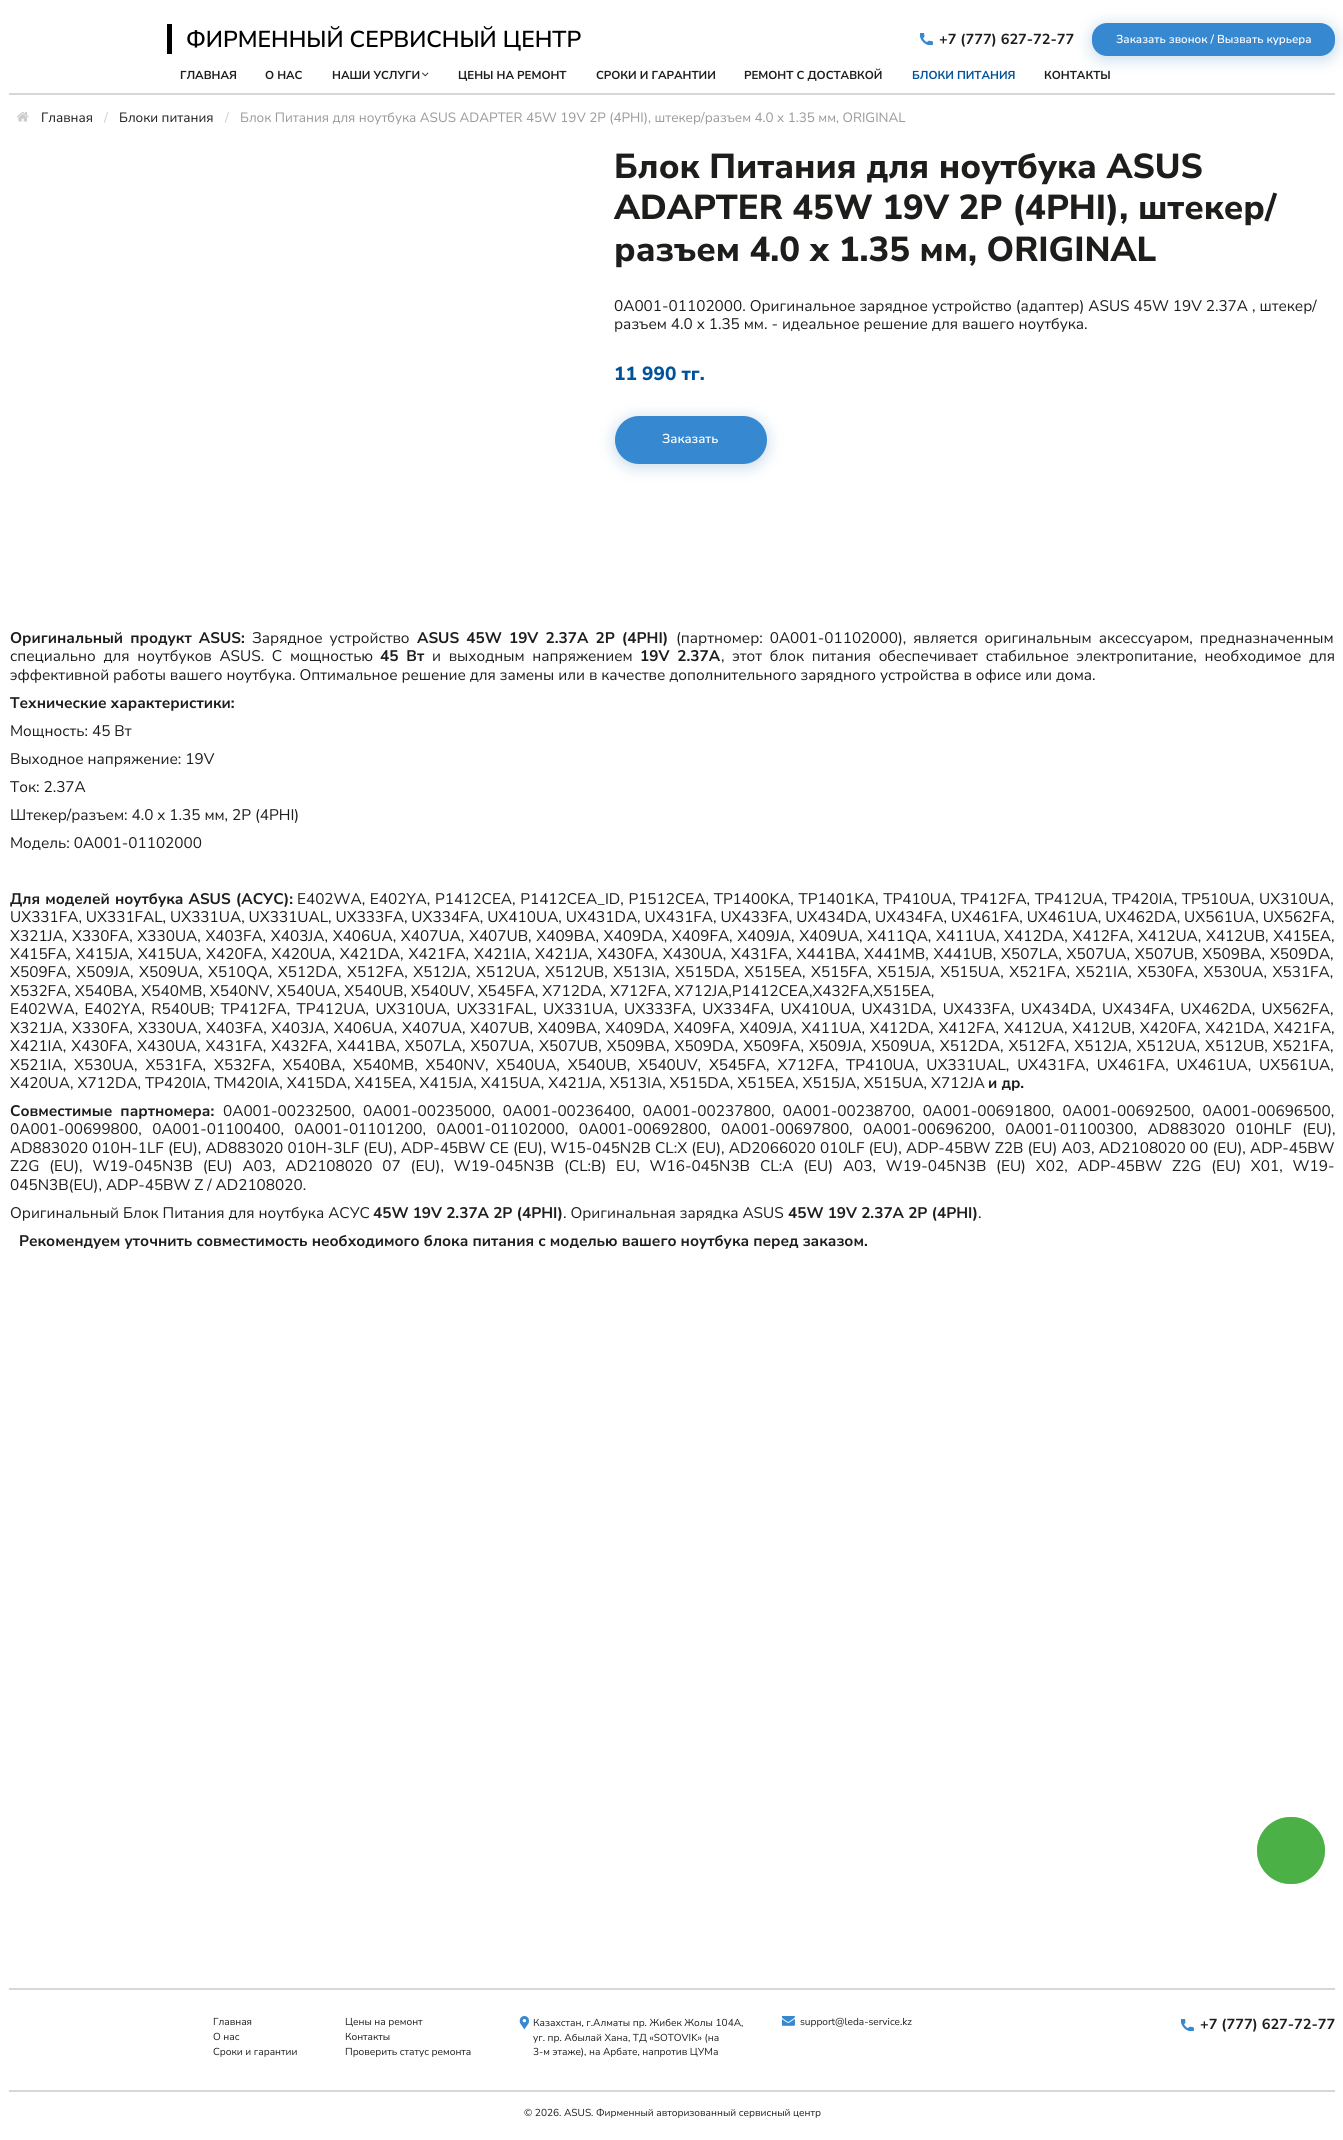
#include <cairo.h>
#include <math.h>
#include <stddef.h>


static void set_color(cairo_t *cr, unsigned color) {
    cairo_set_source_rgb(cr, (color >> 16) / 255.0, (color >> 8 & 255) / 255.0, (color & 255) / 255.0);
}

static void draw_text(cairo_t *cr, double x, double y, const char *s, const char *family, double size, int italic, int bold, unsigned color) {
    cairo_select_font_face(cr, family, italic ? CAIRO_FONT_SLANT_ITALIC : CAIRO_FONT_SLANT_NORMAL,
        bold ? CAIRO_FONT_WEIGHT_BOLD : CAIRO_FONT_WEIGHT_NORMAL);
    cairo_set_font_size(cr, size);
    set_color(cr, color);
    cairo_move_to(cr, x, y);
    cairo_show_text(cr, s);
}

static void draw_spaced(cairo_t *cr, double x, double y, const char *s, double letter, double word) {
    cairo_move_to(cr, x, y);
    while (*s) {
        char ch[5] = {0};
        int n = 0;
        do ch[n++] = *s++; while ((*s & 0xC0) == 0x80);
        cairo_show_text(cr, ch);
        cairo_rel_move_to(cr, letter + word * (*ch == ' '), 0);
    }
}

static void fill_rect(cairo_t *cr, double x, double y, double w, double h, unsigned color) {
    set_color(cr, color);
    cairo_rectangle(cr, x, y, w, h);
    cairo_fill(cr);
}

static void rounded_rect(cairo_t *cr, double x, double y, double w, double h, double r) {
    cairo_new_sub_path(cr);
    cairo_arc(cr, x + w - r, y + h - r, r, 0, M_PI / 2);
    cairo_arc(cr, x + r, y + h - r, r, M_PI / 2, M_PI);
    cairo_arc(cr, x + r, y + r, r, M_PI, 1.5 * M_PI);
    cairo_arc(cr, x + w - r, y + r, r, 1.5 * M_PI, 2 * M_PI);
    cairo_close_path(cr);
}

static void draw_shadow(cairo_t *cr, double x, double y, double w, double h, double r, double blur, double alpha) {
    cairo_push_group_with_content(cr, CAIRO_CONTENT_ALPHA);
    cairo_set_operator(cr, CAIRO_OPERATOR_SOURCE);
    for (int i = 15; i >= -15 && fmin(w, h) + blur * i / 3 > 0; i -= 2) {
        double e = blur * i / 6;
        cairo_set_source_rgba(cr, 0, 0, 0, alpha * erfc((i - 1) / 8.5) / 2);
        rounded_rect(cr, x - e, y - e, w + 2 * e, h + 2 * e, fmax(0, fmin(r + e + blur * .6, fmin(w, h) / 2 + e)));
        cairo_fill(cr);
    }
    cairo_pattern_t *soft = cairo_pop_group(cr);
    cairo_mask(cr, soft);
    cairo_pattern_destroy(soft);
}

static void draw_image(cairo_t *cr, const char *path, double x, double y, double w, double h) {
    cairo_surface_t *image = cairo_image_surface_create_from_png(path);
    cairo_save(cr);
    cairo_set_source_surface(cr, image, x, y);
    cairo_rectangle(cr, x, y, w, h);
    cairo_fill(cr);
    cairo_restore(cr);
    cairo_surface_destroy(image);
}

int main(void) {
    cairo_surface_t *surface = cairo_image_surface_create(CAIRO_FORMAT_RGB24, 1343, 2140);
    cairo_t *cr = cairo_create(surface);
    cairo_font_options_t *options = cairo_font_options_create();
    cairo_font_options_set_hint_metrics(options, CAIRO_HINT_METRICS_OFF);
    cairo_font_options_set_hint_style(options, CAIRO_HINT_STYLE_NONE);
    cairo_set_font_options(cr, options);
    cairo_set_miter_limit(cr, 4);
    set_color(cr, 0xFFFFFF);
    cairo_paint(cr);
    fill_rect(cr, 167, 24, 5, 30, 0x000000);
    draw_text(cr, 186, 47, "ФИРМЕННЫЙ СЕРВИСНЫЙ ЦЕНТР", "Nunito Sans SemiBold", 23, 0, 0, 0x000000);
    draw_image(cr, "assets/img1.png", 920, 33, 13, 12);
    set_color(cr, 0x00539B);
    draw_shadow(cr, 1091, 24, 246, 36, 17, 7.5, 0.2);
    draw_text(cr, 939, 44, "+7 (777) 627-72-77", "Nunito Sans", 14.5, 0, 1, 0x1D1D1B);
    set_color(cr, 0x3689D1);
    rounded_rect(cr, 1092, 23, 243, 33, 15);
    cairo_fill(cr);
    draw_text(cr, 1116, 43, "Заказать звонок / Вызвать курьера", "Nunito Sans SemiBold", 11.5, 0, 0, 0xFFFFFF);
    fill_rect(cr, 9, 93, 1326, 2, 0xD5D8D9);
    draw_text(cr, 180, 79, "ГЛАВНАЯ", "Nunito Sans", 11.5, 0, 1, 0x1D1D1B);
    draw_text(cr, 265, 79, "О НАС", "Nunito Sans", 11.5, 0, 1, 0x1D1D1B);
    draw_text(cr, 332, 79, "НАШИ УСЛУГИ", "Nunito Sans", 11.5, 0, 1, 0x1D1D1B);
    draw_image(cr, "assets/img2.png", 422, 72, 7, 5);
    draw_text(cr, 458, 79, "ЦЕНЫ НА РЕМОНТ", "Nunito Sans", 11.5, 0, 1, 0x1D1D1B);
    draw_text(cr, 596, 79, "СРОКИ И ГАРАНТИИ", "Nunito Sans", 11.5, 0, 1, 0x1D1D1B);
    draw_text(cr, 744, 79, "РЕМОНТ С ДОСТАВКОЙ", "Nunito Sans", 11.5, 0, 1, 0x1D1D1B);
    draw_text(cr, 912, 79, "БЛОКИ ПИТАНИЯ", "Nunito Sans", 11.5, 0, 1, 0x00539B);
    draw_text(cr, 1044, 79, "КОНТАКТЫ", "Nunito Sans", 11.5, 0, 1, 0x1D1D1B);
    draw_image(cr, "assets/img3.png", 16, 111, 13, 11);
    draw_text(cr, 41, 122, "Главная", "Nunito Sans", 13.45, 0, 0, 0x1D1D1B);
    draw_text(cr, 104, 122, "/", "Nunito Sans", 13.45, 0, 0, 0xCCCCCC);
    draw_text(cr, 119, 122, "Блоки питания", "Nunito Sans", 13.45, 0, 0, 0x1D1D1B);
    draw_text(cr, 225, 122, "/", "Nunito Sans", 13.45, 0, 0, 0xCCCCCC);
    draw_text(cr, 240, 122, "Блок Питания для ноутбука ASUS ADAPTER 45W 19V 2P (4PHI), штекер/разъем 4.0 x 1.35 мм, ORIGINAL", "Nunito Sans", 13.45, 0, 0, 0x999999);
    draw_text(cr, 614, 178, "Блок Питания для ноутбука ASUS", "Nunito Sans ExtraBold", 34.6, 0, 0, 0x1D1D1B);
    draw_text(cr, 614, 219, "ADAPTER 45W 19V 2P (4PHI), штекер/", "Nunito Sans ExtraBold", 34.6, 0, 0, 0x1D1D1B);
    draw_text(cr, 614, 261, "разъем 4.0 x 1.35 мм, ORIGINAL", "Nunito Sans ExtraBold", 34.6, 0, 0, 0x1D1D1B);
    draw_text(cr, 614, 311, "0A001-01102000. Оригинальное зарядное устройство (адаптер) ASUS 45W 19V 2.37A , штекер/", "Nunito Sans", 15.35, 0, 0, 0x1D1D1B);
    draw_text(cr, 614, 329, "разъем 4.0 x 1.35 мм. - идеальное решение для вашего ноутбука.", "Nunito Sans", 15.35, 0, 0, 0x1D1D1B);
    draw_text(cr, 614, 380, "11 990 тг.", "Nunito Sans ExtraBold", 19, 0, 0, 0x00539B);
    set_color(cr, 0x00539B);
    draw_shadow(cr, 614, 417, 154, 51, 25.5, 7.5, 0.2);
    set_color(cr, 0x3689D1);
    rounded_rect(cr, 615, 416, 152, 48, 24);
    cairo_fill(cr);
    draw_text(cr, 662, 443, "Заказать", "Nunito Sans SemiBold", 13, 0, 0, 0xFFFFFF);
    cairo_select_font_face(cr, "Nunito Sans", CAIRO_FONT_SLANT_NORMAL, CAIRO_FONT_WEIGHT_BOLD);
    cairo_set_font_size(cr, 15.35);
    set_color(cr, 0x1D1D1B);
    draw_spaced(cr, 10, 643, "Оригинальный продукт ASUS:", 0, 3);
    cairo_select_font_face(cr, "Nunito Sans", CAIRO_FONT_SLANT_NORMAL, CAIRO_FONT_WEIGHT_NORMAL);
    draw_spaced(cr, 252, 643, "Зарядное устройство", 0, 3);
    cairo_select_font_face(cr, "Nunito Sans", CAIRO_FONT_SLANT_NORMAL, CAIRO_FONT_WEIGHT_BOLD);
    draw_spaced(cr, 417, 643, "ASUS 45W 19V 2.37A 2P (4PHI)", 0, 3);
    cairo_select_font_face(cr, "Nunito Sans", CAIRO_FONT_SLANT_NORMAL, CAIRO_FONT_WEIGHT_NORMAL);
    draw_spaced(cr, 676, 643, "(партномер: 0A001-01102000), является оригинальным аксессуаром, предназначенным", 0, 3);
    draw_spaced(cr, 10, 661, "специально для ноутбуков ASUS. С мощностью", 0, 3.75);
    cairo_select_font_face(cr, "Nunito Sans", CAIRO_FONT_SLANT_NORMAL, CAIRO_FONT_WEIGHT_BOLD);
    draw_spaced(cr, 380, 661, "45 Вт", 0, 3.75);
    cairo_select_font_face(cr, "Nunito Sans", CAIRO_FONT_SLANT_NORMAL, CAIRO_FONT_WEIGHT_NORMAL);
    draw_spaced(cr, 432, 661, "и выходным напряжением", 0, 3.75);
    cairo_select_font_face(cr, "Nunito Sans", CAIRO_FONT_SLANT_NORMAL, CAIRO_FONT_WEIGHT_BOLD);
    draw_spaced(cr, 640, 661, "19V 2.37A", 0, 3.75);
    cairo_select_font_face(cr, "Nunito Sans", CAIRO_FONT_SLANT_NORMAL, CAIRO_FONT_WEIGHT_NORMAL);
    draw_spaced(cr, 721, 661, ", этот блок питания обеспечивает стабильное электропитание, необходимое для", 0, 3.75);
    draw_text(cr, 10, 680, "эффективной работы вашего ноутбука. Оптимальное решение для замены или в качестве дополнительного зарядного устройства в офисе или дома.", "Nunito Sans", 15.35, 0, 0, 0x1D1D1B);
    draw_text(cr, 10, 708, "Технические характеристики:", "Nunito Sans", 15.35, 0, 1, 0x1D1D1B);
    draw_text(cr, 10, 736, "Мощность: 45 Вт", "Nunito Sans", 15.35, 0, 0, 0x1D1D1B);
    draw_text(cr, 10, 764, "Выходное напряжение: 19V", "Nunito Sans", 15.35, 0, 0, 0x1D1D1B);
    draw_text(cr, 10, 792, "Ток: 2.37A", "Nunito Sans", 15.35, 0, 0, 0x1D1D1B);
    draw_text(cr, 10, 820, "Штекер/разъем: 4.0 x 1.35 мм, 2P (4PHI)", "Nunito Sans", 15.35, 0, 0, 0x1D1D1B);
    draw_text(cr, 10, 848, "Модель: 0A001-01102000", "Nunito Sans", 15.35, 0, 0, 0x1D1D1B);
    cairo_select_font_face(cr, "Nunito Sans", CAIRO_FONT_SLANT_NORMAL, CAIRO_FONT_WEIGHT_BOLD);
    draw_spaced(cr, 10, 904, "Для моделей ноутбука ASUS (АСУС):", 0, 1);
    cairo_select_font_face(cr, "Nunito Sans", CAIRO_FONT_SLANT_NORMAL, CAIRO_FONT_WEIGHT_NORMAL);
    draw_spaced(cr, 297, 904, "E402WA, E402YA, P1412CEA, P1412CEA_ID, P1512CEA, TP1400KA, TP1401KA, TP410UA, TP412FA, TP412UA, TP420IA, TP510UA, UX310UA,", 0, 0.75);
    draw_text(cr, 10, 922, "UX331FA, UX331FAL, UX331UA, UX331UAL, UX333FA, UX334FA, UX410UA, UX431DA, UX431FA, UX433FA, UX434DA, UX434FA, UX461FA, UX461UA, UX462DA, UX561UA, UX562FA,", "Nunito Sans", 15.35, 0, 0, 0x1D1D1B);
    draw_spaced(cr, 10, 941, "X321JA, X330FA, X330UA, X403FA, X403JA, X406UA, X407UA, X407UB, X409BA, X409DA, X409FA, X409JA, X409UA, X411QA, X411UA, X412DA, X412FA, X412UA, X412UB, X415EA,", 0, 0.7);
    draw_spaced(cr, 10, 959, "X415FA, X415JA, X415UA, X420FA, X420UA, X421DA, X421FA, X421IA, X421JA, X430FA, X430UA, X431FA, X441BA, X441MB, X441UB, X507LA, X507UA, X507UB, X509BA, X509DA,", 0, 0.9);
    draw_spaced(cr, 10, 977, "X509FA, X509JA, X509UA, X510QA, X512DA, X512FA, X512JA, X512UA, X512UB, X513IA, X515DA, X515EA, X515FA, X515JA, X515UA, X521FA, X521IA, X530FA, X530UA, X531FA,", 0, 1.6);
    draw_text(cr, 10, 996, "X532FA, X540BA, X540MB, X540NV, X540UA, X540UB, X540UV, X545FA, X712DA, X712FA, X712JA,P1412CEA,X432FA,X515EA,", "Nunito Sans", 15.35, 0, 0, 0x1D1D1B);
    draw_spaced(cr, 10, 1014, "E402WA, E402YA, R540UB; TP412FA, TP412UA, UX310UA, UX331FAL, UX331UA, UX333FA, UX334FA, UX410UA, UX431DA, UX433FA, UX434DA, UX434FA, UX462DA, UX562FA,", 0, 2.4);
    draw_spaced(cr, 10, 1033, "X321JA, X330FA, X330UA, X403FA, X403JA, X406UA, X407UA, X407UB, X409BA, X409DA, X409FA, X409JA, X411UA, X412DA, X412FA, X412UA, X412UB, X420FA, X421DA, X421FA,", 0, 0.9);
    draw_spaced(cr, 10, 1051, "X421IA, X430FA, X430UA, X431FA, X432FA, X441BA, X507LA, X507UA, X507UB, X509BA, X509DA, X509FA, X509JA, X509UA, X512DA, X512FA, X512JA, X512UA, X512UB, X521FA,", 0, 1.1);
    draw_spaced(cr, 10, 1070, "X521IA, X530UA, X531FA, X532FA, X540BA, X540MB, X540NV, X540UA, X540UB, X540UV, X545FA, X712FA, TP410UA, UX331UAL, UX431FA, UX461FA, UX461UA, UX561UA,", 0, 3.9);
    draw_text(cr, 10, 1088, "X420UA, X712DA, TP420IA, TM420IA, X415DA, X415EA, X415JA, X415UA, X421JA, X513IA, X515DA, X515EA, X515JA, X515UA, X712JA", "Nunito Sans", 15.35, 0, 0, 0x1D1D1B);
    draw_text(cr, 988, 1088, "и др.", "Nunito Sans", 15.35, 0, 1, 0x1D1D1B);
    draw_spaced(cr, 10, 1116, "Совместимые партномера:", 0, 4);
    cairo_select_font_face(cr, "Nunito Sans", CAIRO_FONT_SLANT_NORMAL, CAIRO_FONT_WEIGHT_NORMAL);
    draw_spaced(cr, 223, 1116, "0A001-00232500, 0A001-00235000, 0A001-00236400, 0A001-00237800, 0A001-00238700, 0A001-00691800, 0A001-00692500, 0A001-00696500,", 0, 4.25);
    draw_spaced(cr, 10, 1134, "0A001-00699800, 0A001-01100400, 0A001-01101200, 0A001-01102000, 0A001-00692800, 0A001-00697800, 0A001-00696200, 0A001-01100300, AD883020 010HLF (EU),", 0, 6.5);
    draw_spaced(cr, 10, 1153, "AD883020 010H-1LF (EU), AD883020 010H-3LF (EU), ADP-45BW CE (EU), W15-045N2B CL:X (EU), AD2066020 010LF (EU), ADP-45BW Z2B (EU) A03, AD2108020 00 (EU), ADP-45BW", 0, 0.2);
    draw_spaced(cr, 10, 1171, "Z2G (EU), W19-045N3B (EU) A03, AD2108020 07 (EU), W19-045N3B (CL:B) EU, W16-045N3B", 0, 5.9);
    draw_spaced(cr, 760, 1171, "CL:A (EU) A03, W19-045N3B (EU) X02, ADP-45BW Z2G (EU) X01, W19-", 0, 5.9);
    draw_text(cr, 10, 1190, "045N3B(EU), ADP-45BW Z / AD2108020.", "Nunito Sans", 15.35, 0, 0, 0x1D1D1B);
    draw_text(cr, 10, 1218, "Оригинальный Блок Питания для ноутбука АСУС", "Nunito Sans", 15.35, 0, 0, 0x1D1D1B);
    draw_text(cr, 373, 1218, "45W 19V 2.37A 2P (4PHI)", "Nunito Sans", 15.35, 0, 1, 0x1D1D1B);
    draw_text(cr, 563, 1218, ". Оригинальная зарядка ASUS", "Nunito Sans", 15.35, 0, 0, 0x1D1D1B);
    draw_text(cr, 788, 1218, "45W 19V 2.37A 2P (4PHI)", "Nunito Sans", 15.35, 0, 1, 0x1D1D1B);
    draw_text(cr, 978, 1218, ".", "Nunito Sans", 15.35, 0, 0, 0x1D1D1B);
    draw_text(cr, 19, 1246, "Рекомендуем уточнить совместимость необходимого блока питания с моделью вашего ноутбука перед заказом.", "Nunito Sans", 15.35, 0, 1, 0x1D1D1B);
    set_color(cr, 0x75C472);
    rounded_rect(cr, 1257, 1817, 68, 67, 33.5);
    cairo_fill(cr);
    cairo_set_source_rgba(cr, 0.227, 0.667, 0.208, 0.7);
    rounded_rect(cr, 1257, 1817, 68, 67, 33.5);
    cairo_fill(cr);
    fill_rect(cr, 9, 1988, 1326, 2, 0xD5D8D9);
    fill_rect(cr, 9, 2090, 1326, 2, 0xD5D8D9);
    draw_text(cr, 213, 2025, "Главная", "Nunito Sans", 10.1, 0, 0, 0x1D1D1B);
    draw_text(cr, 213, 2040, "О нас", "Nunito Sans", 10.1, 0, 0, 0x1D1D1B);
    draw_text(cr, 213, 2055, "Сроки и гарантии", "Nunito Sans", 10.1, 0, 0, 0x1D1D1B);
    draw_text(cr, 345, 2025, "Цены на ремонт", "Nunito Sans", 10.1, 0, 0, 0x1D1D1B);
    draw_text(cr, 345, 2040, "Контакты", "Nunito Sans", 10.1, 0, 0, 0x1D1D1B);
    draw_text(cr, 345, 2055, "Проверить статус ремонта", "Nunito Sans", 10.1, 0, 0, 0x1D1D1B);
    draw_image(cr, "assets/img4.png", 519, 2016, 10, 14);
    draw_text(cr, 533, 2026, "Казахстан, г.Алматы пр. Жибек Жолы 104А,", "Nunito Sans", 10.1, 0, 0, 0x1D1D1B);
    draw_text(cr, 533, 2041, "уг. пр. Абылай Хана, ТД «SOTOVIK» (на", "Nunito Sans", 10.1, 0, 0, 0x1D1D1B);
    draw_text(cr, 533, 2055, "3-м этаже), на Арбате, напротив ЦУМа", "Nunito Sans", 10.1, 0, 0, 0x1D1D1B);
    draw_image(cr, "assets/img5.png", 782, 2016, 13, 10);
    draw_text(cr, 800, 2025, "support@leda-service.kz", "Nunito Sans", 10.1, 0, 0, 0x1D1D1B);
    draw_image(cr, "assets/img1.png", 1181, 2019, 13, 12);
    draw_text(cr, 1200, 2029, "+7 (777) 627-72-77", "Nunito Sans", 14.5, 0, 1, 0x1D1D1B);
    draw_text(cr, 524, 2116, "© 2026. ASUS. Фирменный авторизованный сервисный центр", "Nunito Sans", 10.1, 0, 0, 0x1D1D1B);
    cairo_surface_write_to_png(surface, "output.png");
    cairo_font_options_destroy(options);
    cairo_destroy(cr);
    cairo_surface_destroy(surface);
    return 0;
}
